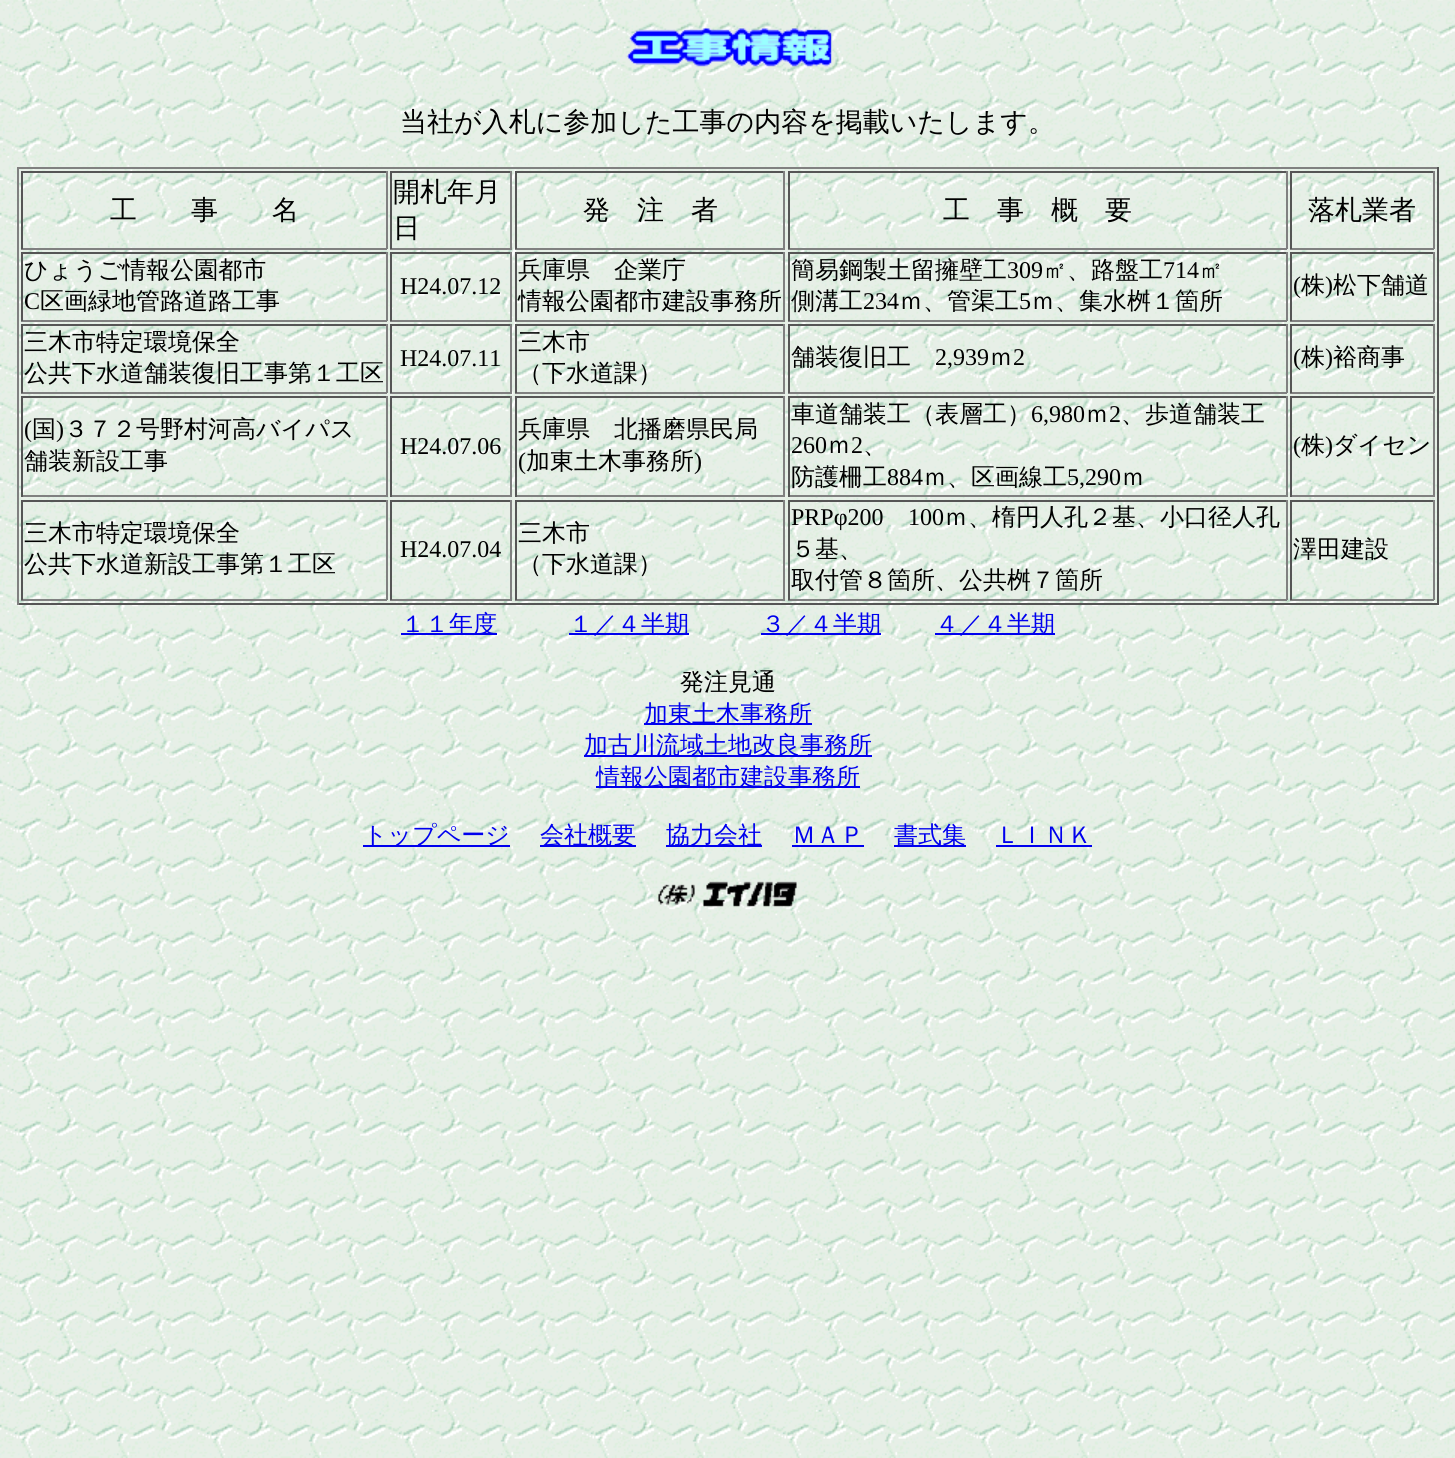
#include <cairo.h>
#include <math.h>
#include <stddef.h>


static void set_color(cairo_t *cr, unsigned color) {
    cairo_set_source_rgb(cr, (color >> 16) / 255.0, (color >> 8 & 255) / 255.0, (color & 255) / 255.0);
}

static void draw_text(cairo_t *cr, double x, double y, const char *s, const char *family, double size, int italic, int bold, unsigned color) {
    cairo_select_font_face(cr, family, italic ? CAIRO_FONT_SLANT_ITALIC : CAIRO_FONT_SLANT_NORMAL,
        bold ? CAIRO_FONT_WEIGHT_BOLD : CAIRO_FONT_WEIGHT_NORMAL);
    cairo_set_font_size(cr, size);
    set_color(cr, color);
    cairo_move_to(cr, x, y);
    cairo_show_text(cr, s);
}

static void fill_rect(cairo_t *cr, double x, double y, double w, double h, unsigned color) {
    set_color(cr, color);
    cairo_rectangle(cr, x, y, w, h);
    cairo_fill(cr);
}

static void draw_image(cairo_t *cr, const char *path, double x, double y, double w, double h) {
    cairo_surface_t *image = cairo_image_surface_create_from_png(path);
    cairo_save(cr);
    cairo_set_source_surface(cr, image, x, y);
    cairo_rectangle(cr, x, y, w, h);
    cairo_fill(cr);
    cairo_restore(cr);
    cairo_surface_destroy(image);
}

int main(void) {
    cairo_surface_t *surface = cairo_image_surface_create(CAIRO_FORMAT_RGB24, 1455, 1458);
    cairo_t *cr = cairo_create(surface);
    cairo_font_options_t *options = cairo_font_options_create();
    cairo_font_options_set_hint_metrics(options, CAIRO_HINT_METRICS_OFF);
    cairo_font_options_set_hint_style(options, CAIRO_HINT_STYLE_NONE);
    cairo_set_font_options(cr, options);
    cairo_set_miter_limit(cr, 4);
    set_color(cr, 0xFFFFFF);
    cairo_paint(cr);
    draw_image(cr, "assets/img1.png", 0, 0, 1455, 1458);
    draw_image(cr, "assets/img2.png", 626, 28, 206, 39);
    draw_text(cr, 400, 131, "当社が入札に参加した工事の内容を掲載いたします。", "WenQuanYi Zen Hei Medium", 27, 0, 0, 0x000000);
    fill_rect(cr, 17, 167, 1422, 2, 0x808080);
    fill_rect(cr, 1437, 167, 2, 438, 0x555555);
    fill_rect(cr, 17, 603, 1422, 2, 0x555555);
    fill_rect(cr, 17, 167, 2, 438, 0x808080);
    fill_rect(cr, 21, 171, 366, 2, 0x555555);
    fill_rect(cr, 386, 171, 2, 78, 0x808080);
    fill_rect(cr, 21, 248, 366, 2, 0x808080);
    fill_rect(cr, 21, 171, 2, 78, 0x555555);
    draw_text(cr, 110, 219, "工　　事　　名", "WenQuanYi Zen Hei Medium", 27, 0, 0, 0x000000);
    fill_rect(cr, 390, 171, 122, 2, 0x555555);
    fill_rect(cr, 510, 171, 2, 78, 0x808080);
    fill_rect(cr, 390, 248, 122, 2, 0x808080);
    fill_rect(cr, 390, 171, 2, 78, 0x555555);
    draw_text(cr, 393, 201, "開札年月", "WenQuanYi Zen Hei Medium", 27, 0, 0, 0x000000);
    draw_text(cr, 393, 237, "日", "WenQuanYi Zen Hei Medium", 27, 0, 0, 0x000000);
    fill_rect(cr, 515, 171, 270, 2, 0x555555);
    fill_rect(cr, 783, 171, 2, 78, 0x808080);
    fill_rect(cr, 515, 248, 270, 2, 0x808080);
    fill_rect(cr, 515, 171, 2, 78, 0x555555);
    draw_text(cr, 583, 219, "発　注　者", "WenQuanYi Zen Hei Medium", 27, 0, 0, 0x000000);
    fill_rect(cr, 788, 171, 499, 2, 0x555555);
    fill_rect(cr, 1286, 171, 2, 78, 0x808080);
    fill_rect(cr, 788, 248, 499, 2, 0x808080);
    fill_rect(cr, 788, 171, 2, 78, 0x555555);
    draw_text(cr, 943, 219, "工　事　概　要", "WenQuanYi Zen Hei Medium", 27, 0, 0, 0x000000);
    fill_rect(cr, 1290, 171, 144, 2, 0x555555);
    fill_rect(cr, 1433, 171, 2, 78, 0x808080);
    fill_rect(cr, 1290, 248, 144, 2, 0x808080);
    fill_rect(cr, 1290, 171, 2, 78, 0x555555);
    draw_text(cr, 1308, 219, "落札業者", "WenQuanYi Zen Hei Medium", 27, 0, 0, 0x000000);
    fill_rect(cr, 21, 252, 366, 2, 0x555555);
    fill_rect(cr, 386, 252, 2, 69, 0x808080);
    fill_rect(cr, 21, 320, 366, 2, 0x808080);
    fill_rect(cr, 21, 252, 2, 69, 0x555555);
    draw_text(cr, 24, 278, "ひょうご情報公園都市", "WenQuanYi Zen Hei Medium", 24, 0, 0, 0x000000);
    draw_text(cr, 24, 309, "C", "Liberation Serif", 24, 0, 0, 0x000000);
    draw_text(cr, 40, 309, "区画緑地管路道路工事", "WenQuanYi Zen Hei Medium", 24, 0, 0, 0x000000);
    fill_rect(cr, 390, 252, 122, 2, 0x555555);
    fill_rect(cr, 510, 252, 2, 69, 0x808080);
    fill_rect(cr, 390, 320, 122, 2, 0x808080);
    fill_rect(cr, 390, 252, 2, 69, 0x555555);
    draw_text(cr, 400, 294, "H24.07.12", "Liberation Serif", 24, 0, 0, 0x000000);
    fill_rect(cr, 515, 252, 270, 2, 0x555555);
    fill_rect(cr, 783, 252, 2, 69, 0x808080);
    fill_rect(cr, 515, 320, 270, 2, 0x808080);
    fill_rect(cr, 515, 252, 2, 69, 0x555555);
    draw_text(cr, 518, 278, "兵庫県　企業庁", "WenQuanYi Zen Hei Medium", 24, 0, 0, 0x000000);
    draw_text(cr, 518, 309, "情報公園都市建設事務所", "WenQuanYi Zen Hei Medium", 24, 0, 0, 0x000000);
    fill_rect(cr, 788, 252, 499, 2, 0x555555);
    fill_rect(cr, 1286, 252, 2, 69, 0x808080);
    fill_rect(cr, 788, 320, 499, 2, 0x808080);
    fill_rect(cr, 788, 252, 2, 69, 0x555555);
    draw_text(cr, 791, 278, "簡易鋼製土留擁壁工", "WenQuanYi Zen Hei Medium", 24, 0, 0, 0x000000);
    draw_text(cr, 1007, 278, "309", "Liberation Serif", 24, 0, 0, 0x000000);
    draw_text(cr, 1043, 278, "㎡、路盤工", "WenQuanYi Zen Hei Medium", 24, 0, 0, 0x000000);
    draw_text(cr, 1163, 278, "714", "Liberation Serif", 24, 0, 0, 0x000000);
    draw_text(cr, 1199, 278, "㎡", "WenQuanYi Zen Hei Medium", 24, 0, 0, 0x000000);
    draw_text(cr, 791, 309, "側溝工", "WenQuanYi Zen Hei Medium", 24, 0, 0, 0x000000);
    draw_text(cr, 863, 309, "234", "Liberation Serif", 24, 0, 0, 0x000000);
    draw_text(cr, 899, 309, "ｍ、管渠工", "WenQuanYi Zen Hei Medium", 24, 0, 0, 0x000000);
    draw_text(cr, 1019, 309, "5", "Liberation Serif", 24, 0, 0, 0x000000);
    draw_text(cr, 1031, 309, "ｍ、集水桝１箇所", "WenQuanYi Zen Hei Medium", 24, 0, 0, 0x000000);
    fill_rect(cr, 1290, 252, 144, 2, 0x555555);
    fill_rect(cr, 1433, 252, 2, 69, 0x808080);
    fill_rect(cr, 1290, 320, 144, 2, 0x808080);
    fill_rect(cr, 1290, 252, 2, 69, 0x555555);
    draw_text(cr, 1293, 293, "(", "Liberation Serif", 24, 0, 0, 0x000000);
    draw_text(cr, 1301, 293, "株", "WenQuanYi Zen Hei Medium", 24, 0, 0, 0x000000);
    draw_text(cr, 1325, 293, ")", "Liberation Serif", 24, 0, 0, 0x000000);
    draw_text(cr, 1333, 293, "松下舗道", "WenQuanYi Zen Hei Medium", 24, 0, 0, 0x000000);
    fill_rect(cr, 21, 324, 366, 2, 0x555555);
    fill_rect(cr, 386, 324, 2, 69, 0x808080);
    fill_rect(cr, 21, 392, 366, 2, 0x808080);
    fill_rect(cr, 21, 324, 2, 69, 0x555555);
    draw_text(cr, 24, 350, "三木市特定環境保全", "WenQuanYi Zen Hei Medium", 24, 0, 0, 0x000000);
    draw_text(cr, 24, 381, "公共下水道舗装復旧工事第１工区", "WenQuanYi Zen Hei Medium", 24, 0, 0, 0x000000);
    fill_rect(cr, 390, 324, 122, 2, 0x555555);
    fill_rect(cr, 510, 324, 2, 69, 0x808080);
    fill_rect(cr, 390, 392, 122, 2, 0x808080);
    fill_rect(cr, 390, 324, 2, 69, 0x555555);
    draw_text(cr, 400, 366, "H24.07.11", "Liberation Serif", 24, 0, 0, 0x000000);
    fill_rect(cr, 515, 324, 270, 2, 0x555555);
    fill_rect(cr, 783, 324, 2, 69, 0x808080);
    fill_rect(cr, 515, 392, 270, 2, 0x808080);
    fill_rect(cr, 515, 324, 2, 69, 0x555555);
    draw_text(cr, 518, 350, "三木市", "WenQuanYi Zen Hei Medium", 24, 0, 0, 0x000000);
    draw_text(cr, 518, 381, "（下水道課）", "WenQuanYi Zen Hei Medium", 24, 0, 0, 0x000000);
    fill_rect(cr, 788, 324, 499, 2, 0x555555);
    fill_rect(cr, 1286, 324, 2, 69, 0x808080);
    fill_rect(cr, 788, 392, 499, 2, 0x808080);
    fill_rect(cr, 788, 324, 2, 69, 0x555555);
    draw_text(cr, 791, 365, "舗装復旧工", "WenQuanYi Zen Hei Medium", 24, 0, 0, 0x000000);
    draw_text(cr, 935, 365, "2,939", "Liberation Serif", 24, 0, 0, 0x000000);
    draw_text(cr, 989, 365, "ｍ", "WenQuanYi Zen Hei Medium", 24, 0, 0, 0x000000);
    draw_text(cr, 1013, 365, "2", "Liberation Serif", 24, 0, 0, 0x000000);
    fill_rect(cr, 1290, 324, 144, 2, 0x555555);
    fill_rect(cr, 1433, 324, 2, 69, 0x808080);
    fill_rect(cr, 1290, 392, 144, 2, 0x808080);
    fill_rect(cr, 1290, 324, 2, 69, 0x555555);
    draw_text(cr, 1293, 365, "(", "Liberation Serif", 24, 0, 0, 0x000000);
    draw_text(cr, 1301, 365, "株", "WenQuanYi Zen Hei Medium", 24, 0, 0, 0x000000);
    draw_text(cr, 1325, 365, ")", "Liberation Serif", 24, 0, 0, 0x000000);
    draw_text(cr, 1333, 365, "裕商事", "WenQuanYi Zen Hei Medium", 24, 0, 0, 0x000000);
    fill_rect(cr, 21, 396, 366, 2, 0x555555);
    fill_rect(cr, 386, 396, 2, 101, 0x808080);
    fill_rect(cr, 21, 495, 366, 2, 0x808080);
    fill_rect(cr, 21, 396, 2, 101, 0x555555);
    draw_text(cr, 24, 437, "(", "Liberation Serif", 24, 0, 0, 0x000000);
    draw_text(cr, 32, 437, "国", "WenQuanYi Zen Hei Medium", 24, 0, 0, 0x000000);
    draw_text(cr, 56, 437, ")", "Liberation Serif", 24, 0, 0, 0x000000);
    draw_text(cr, 64, 437, "３７２号野村河高バイパス", "WenQuanYi Zen Hei Medium", 24, 0, 0, 0x000000);
    draw_text(cr, 24, 469, "舗装新設工事", "WenQuanYi Zen Hei Medium", 24, 0, 0, 0x000000);
    fill_rect(cr, 390, 396, 122, 2, 0x555555);
    fill_rect(cr, 510, 396, 2, 101, 0x808080);
    fill_rect(cr, 390, 495, 122, 2, 0x808080);
    fill_rect(cr, 390, 396, 2, 101, 0x555555);
    draw_text(cr, 400, 454, "H24.07.06", "Liberation Serif", 24, 0, 0, 0x000000);
    fill_rect(cr, 515, 396, 270, 2, 0x555555);
    fill_rect(cr, 783, 396, 2, 101, 0x808080);
    fill_rect(cr, 515, 495, 270, 2, 0x808080);
    fill_rect(cr, 515, 396, 2, 101, 0x555555);
    draw_text(cr, 518, 437, "兵庫県　北播磨県民局", "WenQuanYi Zen Hei Medium", 24, 0, 0, 0x000000);
    draw_text(cr, 518, 469, "(", "Liberation Serif", 24, 0, 0, 0x000000);
    draw_text(cr, 526, 469, "加東土木事務所", "WenQuanYi Zen Hei Medium", 24, 0, 0, 0x000000);
    draw_text(cr, 694, 469, ")", "Liberation Serif", 24, 0, 0, 0x000000);
    fill_rect(cr, 788, 396, 499, 2, 0x555555);
    fill_rect(cr, 1286, 396, 2, 101, 0x808080);
    fill_rect(cr, 788, 495, 499, 2, 0x808080);
    fill_rect(cr, 788, 396, 2, 101, 0x555555);
    draw_text(cr, 791, 422, "車道舗装工（表層工）", "WenQuanYi Zen Hei Medium", 24, 0, 0, 0x000000);
    draw_text(cr, 1031, 422, "6,980", "Liberation Serif", 24, 0, 0, 0x000000);
    draw_text(cr, 1085, 422, "ｍ", "WenQuanYi Zen Hei Medium", 24, 0, 0, 0x000000);
    draw_text(cr, 1109, 422, "2", "Liberation Serif", 24, 0, 0, 0x000000);
    draw_text(cr, 1121, 422, "、歩道舗装工", "WenQuanYi Zen Hei Medium", 24, 0, 0, 0x000000);
    draw_text(cr, 791, 453, "260", "Liberation Serif", 24, 0, 0, 0x000000);
    draw_text(cr, 827, 453, "ｍ", "WenQuanYi Zen Hei Medium", 24, 0, 0, 0x000000);
    draw_text(cr, 851, 453, "2", "Liberation Serif", 24, 0, 0, 0x000000);
    draw_text(cr, 863, 453, "、", "WenQuanYi Zen Hei Medium", 24, 0, 0, 0x000000);
    draw_text(cr, 791, 485, "防護柵工", "WenQuanYi Zen Hei Medium", 24, 0, 0, 0x000000);
    draw_text(cr, 887, 485, "884", "Liberation Serif", 24, 0, 0, 0x000000);
    draw_text(cr, 923, 485, "ｍ、区画線工", "WenQuanYi Zen Hei Medium", 24, 0, 0, 0x000000);
    draw_text(cr, 1067, 485, "5,290", "Liberation Serif", 24, 0, 0, 0x000000);
    draw_text(cr, 1121, 485, "ｍ", "WenQuanYi Zen Hei Medium", 24, 0, 0, 0x000000);
    fill_rect(cr, 1290, 396, 144, 2, 0x555555);
    fill_rect(cr, 1433, 396, 2, 101, 0x808080);
    fill_rect(cr, 1290, 495, 144, 2, 0x808080);
    fill_rect(cr, 1290, 396, 2, 101, 0x555555);
    draw_text(cr, 1293, 453, "(", "Liberation Serif", 24, 0, 0, 0x000000);
    draw_text(cr, 1301, 453, "株", "WenQuanYi Zen Hei Medium", 24, 0, 0, 0x000000);
    draw_text(cr, 1325, 453, ")", "Liberation Serif", 24, 0, 0, 0x000000);
    draw_text(cr, 1333, 453, "ダイセン", "WenQuanYi Zen Hei Medium", 24, 0, 0, 0x000000);
    fill_rect(cr, 21, 500, 366, 2, 0x555555);
    fill_rect(cr, 386, 500, 2, 100, 0x808080);
    fill_rect(cr, 21, 599, 366, 2, 0x808080);
    fill_rect(cr, 21, 500, 2, 100, 0x555555);
    draw_text(cr, 24, 541, "三木市特定環境保全", "WenQuanYi Zen Hei Medium", 24, 0, 0, 0x000000);
    draw_text(cr, 24, 572, "公共下水道新設工事第１工区", "WenQuanYi Zen Hei Medium", 24, 0, 0, 0x000000);
    fill_rect(cr, 390, 500, 122, 2, 0x555555);
    fill_rect(cr, 510, 500, 2, 100, 0x808080);
    fill_rect(cr, 390, 599, 122, 2, 0x808080);
    fill_rect(cr, 390, 500, 2, 100, 0x555555);
    draw_text(cr, 400, 557, "H24.07.04", "Liberation Serif", 24, 0, 0, 0x000000);
    fill_rect(cr, 515, 500, 270, 2, 0x555555);
    fill_rect(cr, 783, 500, 2, 100, 0x808080);
    fill_rect(cr, 515, 599, 270, 2, 0x808080);
    fill_rect(cr, 515, 500, 2, 100, 0x555555);
    draw_text(cr, 518, 541, "三木市", "WenQuanYi Zen Hei Medium", 24, 0, 0, 0x000000);
    draw_text(cr, 518, 572, "（下水道課）", "WenQuanYi Zen Hei Medium", 24, 0, 0, 0x000000);
    fill_rect(cr, 788, 500, 499, 2, 0x555555);
    fill_rect(cr, 1286, 500, 2, 100, 0x808080);
    fill_rect(cr, 788, 599, 499, 2, 0x808080);
    fill_rect(cr, 788, 500, 2, 100, 0x555555);
    draw_text(cr, 791, 525, "PRPφ200", "Liberation Serif", 24, 0, 0, 0x000000);
    draw_text(cr, 908, 525, "100", "Liberation Serif", 24, 0, 0, 0x000000);
    draw_text(cr, 944, 525, "ｍ、楕円人孔２基、小口径人孔", "WenQuanYi Zen Hei Medium", 24, 0, 0, 0x000000);
    draw_text(cr, 791, 557, "５基、", "WenQuanYi Zen Hei Medium", 24, 0, 0, 0x000000);
    draw_text(cr, 791, 588, "取付管８箇所、公共桝７箇所", "WenQuanYi Zen Hei Medium", 24, 0, 0, 0x000000);
    fill_rect(cr, 1290, 500, 144, 2, 0x555555);
    fill_rect(cr, 1433, 500, 2, 100, 0x808080);
    fill_rect(cr, 1290, 599, 144, 2, 0x808080);
    fill_rect(cr, 1290, 500, 2, 100, 0x555555);
    draw_text(cr, 1293, 557, "澤田建設", "WenQuanYi Zen Hei Medium", 24, 0, 0, 0x000000);
    fill_rect(cr, 401, 633, 96, 2, 0x0000EE);
    draw_text(cr, 401, 632, "１１年度", "WenQuanYi Zen Hei Medium", 24, 0, 0, 0x0000EE);
    fill_rect(cr, 569, 633, 120, 2, 0x0000EE);
    draw_text(cr, 569, 632, "１／４半期", "WenQuanYi Zen Hei Medium", 24, 0, 0, 0x0000EE);
    fill_rect(cr, 761, 633, 120, 2, 0x0000EE);
    draw_text(cr, 761, 632, "３／４半期", "WenQuanYi Zen Hei Medium", 24, 0, 0, 0x0000EE);
    fill_rect(cr, 935, 633, 120, 2, 0x0000EE);
    draw_text(cr, 935, 632, "４／４半期", "WenQuanYi Zen Hei Medium", 24, 0, 0, 0x0000EE);
    draw_text(cr, 680, 690, "発注見通", "WenQuanYi Zen Hei Medium", 24, 0, 0, 0x000000);
    fill_rect(cr, 644, 723, 168, 2, 0x0000EE);
    draw_text(cr, 644, 722, "加東土木事務所", "WenQuanYi Zen Hei Medium", 24, 0, 0, 0x0000EE);
    fill_rect(cr, 584, 755, 288, 2, 0x0000EE);
    draw_text(cr, 584, 753, "加古川流域土地改良事務所", "WenQuanYi Zen Hei Medium", 24, 0, 0, 0x0000EE);
    fill_rect(cr, 596, 786, 264, 2, 0x0000EE);
    draw_text(cr, 596, 785, "情報公園都市建設事務所", "WenQuanYi Zen Hei Medium", 24, 0, 0, 0x0000EE);
    fill_rect(cr, 363, 845, 147, 2, 0x0000EE);
    draw_text(cr, 363, 843, "トップページ", "WenQuanYi Zen Hei Medium", 24, 0, 0, 0x0000EE);
    fill_rect(cr, 540, 845, 96, 2, 0x0000EE);
    draw_text(cr, 540, 843, "会社概要", "WenQuanYi Zen Hei Medium", 24, 0, 0, 0x0000EE);
    fill_rect(cr, 666, 845, 96, 2, 0x0000EE);
    draw_text(cr, 666, 843, "協力会社", "WenQuanYi Zen Hei Medium", 24, 0, 0, 0x0000EE);
    draw_text(cr, 792, 843, "ＭＡＰ", "WenQuanYi Zen Hei Medium", 24, 0, 0, 0x0000EE);
    fill_rect(cr, 792, 845, 72, 2, 0x0000EE);
    fill_rect(cr, 894, 845, 72, 2, 0x0000EE);
    draw_text(cr, 894, 843, "書式集", "WenQuanYi Zen Hei Medium", 24, 0, 0, 0x0000EE);
    draw_text(cr, 996, 843, "ＬＩＮＫ", "WenQuanYi Zen Hei Medium", 24, 0, 0, 0x0000EE);
    fill_rect(cr, 996, 845, 96, 2, 0x0000EE);
    draw_image(cr, "assets/img3.png", 658, 881, 139, 26);
    cairo_surface_write_to_png(surface, "output.png");
    cairo_font_options_destroy(options);
    cairo_destroy(cr);
    cairo_surface_destroy(surface);
    return 0;
}
